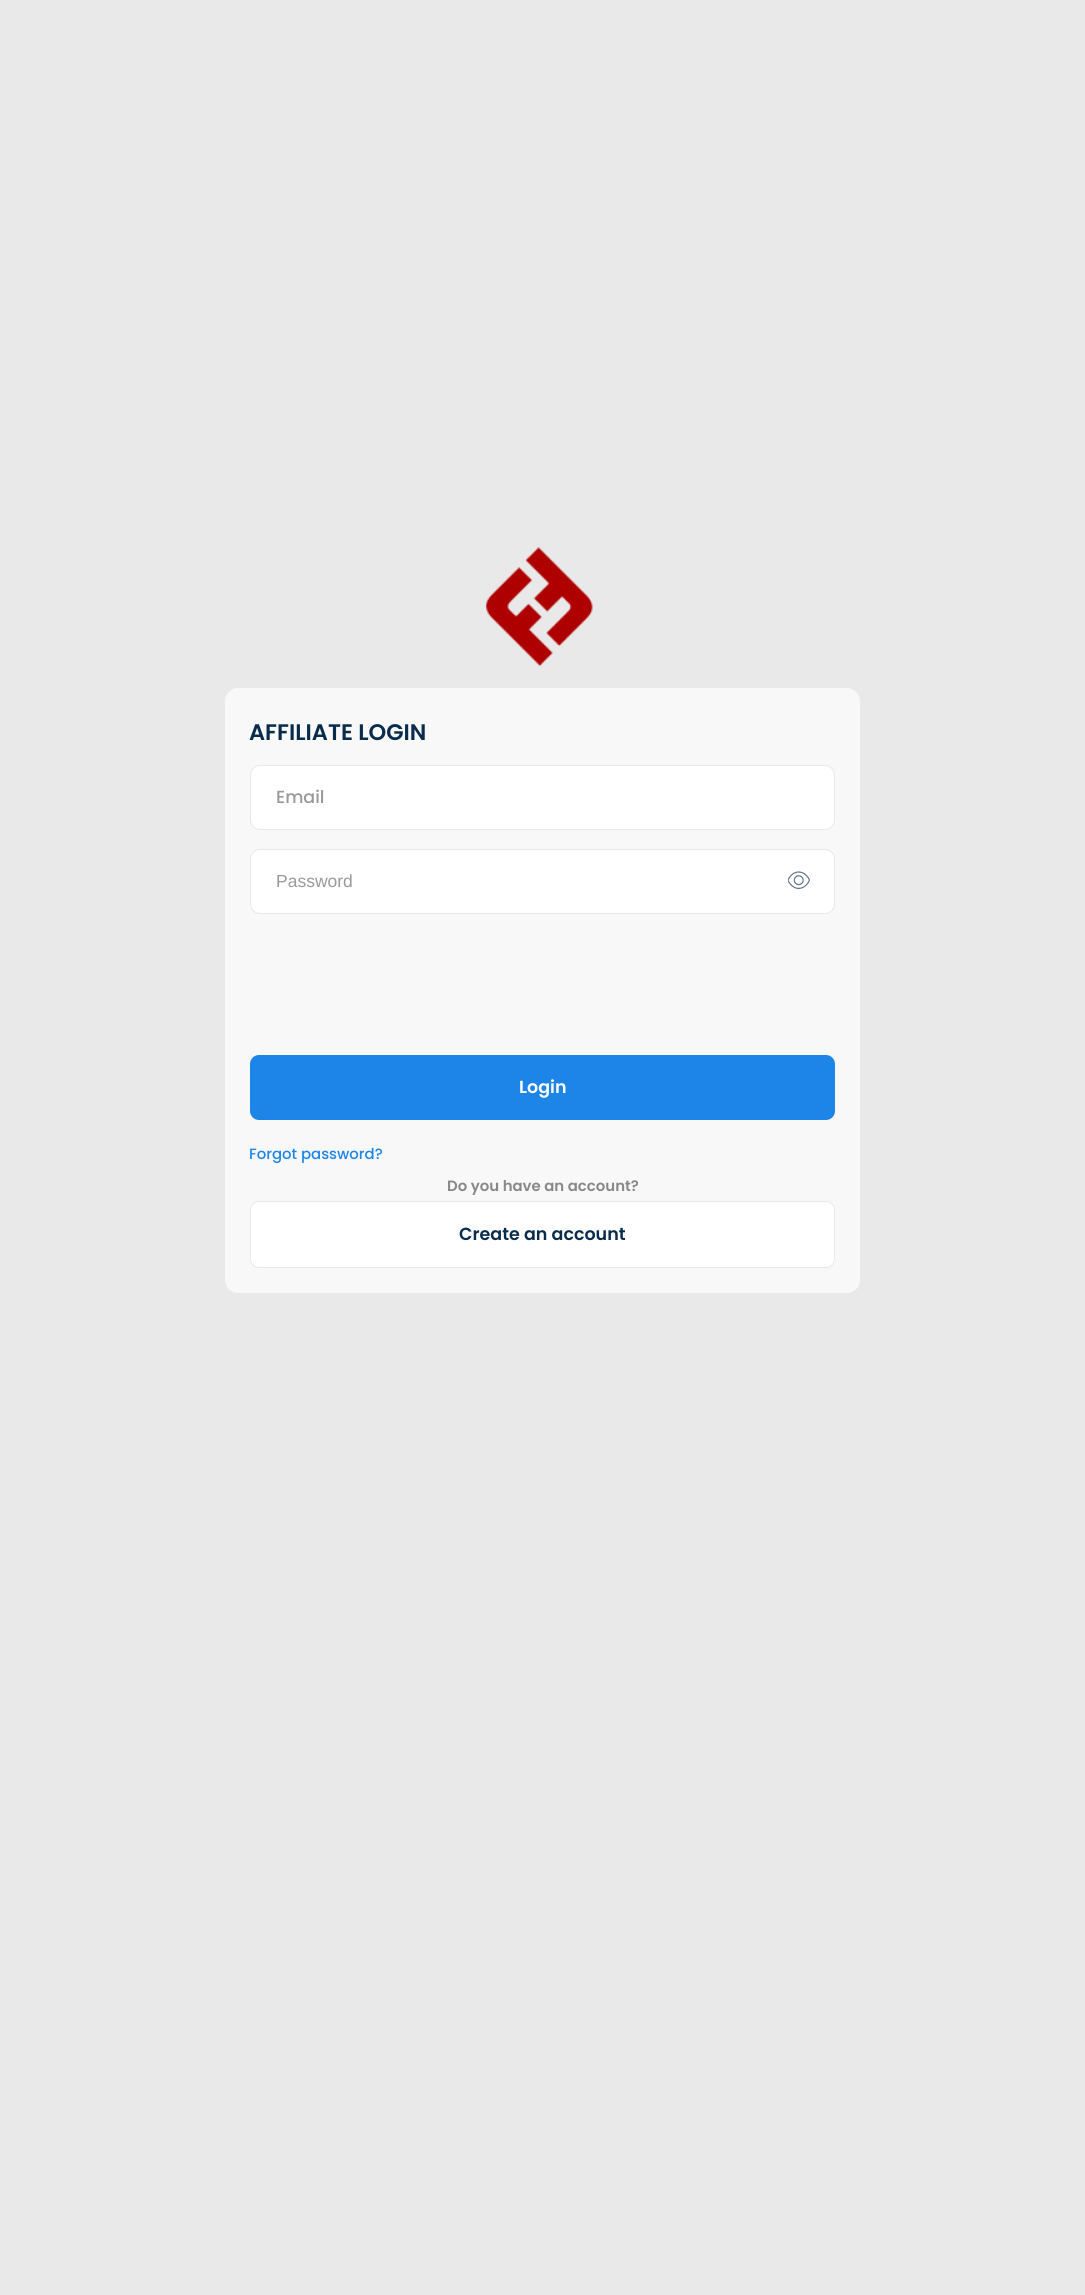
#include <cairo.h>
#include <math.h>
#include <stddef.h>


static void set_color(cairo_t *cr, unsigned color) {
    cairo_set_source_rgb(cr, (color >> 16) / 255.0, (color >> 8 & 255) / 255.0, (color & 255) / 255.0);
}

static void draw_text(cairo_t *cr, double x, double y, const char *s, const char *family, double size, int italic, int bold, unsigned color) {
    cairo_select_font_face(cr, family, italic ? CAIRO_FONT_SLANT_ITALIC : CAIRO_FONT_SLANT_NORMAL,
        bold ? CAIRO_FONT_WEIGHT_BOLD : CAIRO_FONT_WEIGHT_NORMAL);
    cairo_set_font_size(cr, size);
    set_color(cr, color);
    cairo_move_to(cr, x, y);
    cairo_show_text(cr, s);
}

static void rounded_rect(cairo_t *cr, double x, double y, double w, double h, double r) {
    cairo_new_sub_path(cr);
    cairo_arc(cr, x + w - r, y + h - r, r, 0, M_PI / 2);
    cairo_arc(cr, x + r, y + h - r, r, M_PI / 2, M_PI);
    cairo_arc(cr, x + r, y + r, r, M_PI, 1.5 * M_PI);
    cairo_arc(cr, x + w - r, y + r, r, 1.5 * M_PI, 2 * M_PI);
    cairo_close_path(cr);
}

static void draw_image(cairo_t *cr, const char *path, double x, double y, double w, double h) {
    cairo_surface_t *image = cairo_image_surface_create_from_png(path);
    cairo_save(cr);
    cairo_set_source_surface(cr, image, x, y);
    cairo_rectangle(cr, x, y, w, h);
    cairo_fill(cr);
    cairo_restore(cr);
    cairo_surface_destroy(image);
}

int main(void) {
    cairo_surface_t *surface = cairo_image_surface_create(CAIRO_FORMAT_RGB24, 1085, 2295);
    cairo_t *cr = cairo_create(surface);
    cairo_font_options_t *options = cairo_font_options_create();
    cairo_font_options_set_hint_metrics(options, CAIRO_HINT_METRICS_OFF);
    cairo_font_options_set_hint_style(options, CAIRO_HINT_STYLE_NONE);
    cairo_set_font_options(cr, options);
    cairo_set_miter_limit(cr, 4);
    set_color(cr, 0xE9E9E9);
    cairo_paint(cr);
    draw_image(cr, "assets/img1.png", 485, 547, 108, 120);
    cairo_set_source_rgba(cr, 1, 1, 1, 0.7);
    rounded_rect(cr, 225, 688, 635, 605, 13);
    cairo_fill(cr);
    draw_text(cr, 249, 740, "AFFILIATE LOGIN", "Poppins SemiBold", 22.5, 0, 0, 0x092C4C);
    set_color(cr, 0xFFFFFF);
    rounded_rect(cr, 250.5, 765.5, 584, 64, 9.5);
    cairo_fill_preserve(cr);
    set_color(cr, 0xE7E8EC);
    cairo_set_line_width(cr, 1);
    cairo_stroke(cr);
    draw_text(cr, 276, 803, "Email", "Poppins Medium", 17.5, 0, 0, 0x999999);
    set_color(cr, 0xFFFFFF);
    rounded_rect(cr, 250.5, 849.5, 584, 64, 9.5);
    cairo_fill_preserve(cr);
    set_color(cr, 0xE7E8EC);
    cairo_stroke(cr);
    draw_text(cr, 276, 887, "Password", "Liberation Sans", 17.5, 0, 0, 0x999999);
    draw_image(cr, "assets/img2.png", 788, 871, 22, 18);
    set_color(cr, 0x1D85E8);
    rounded_rect(cr, 250, 1055, 585, 65, 9);
    cairo_fill(cr);
    draw_text(cr, 519, 1093, "Login", "Poppins SemiBold", 17.5, 0, 0, 0xFFFFFF);
    draw_text(cr, 249, 1159, "Forgot password?", "Poppins Medium", 14.9, 0, 0, 0x1D85E8);
    draw_text(cr, 447, 1191, "Do you have an account?", "Poppins SemiBold", 14.9, 0, 0, 0x888888);
    set_color(cr, 0xFFFFFF);
    rounded_rect(cr, 250.5, 1201.5, 584, 66, 8.5);
    cairo_fill_preserve(cr);
    set_color(cr, 0xE7EAEC);
    cairo_stroke(cr);
    draw_text(cr, 459, 1240, "Create an account", "Poppins SemiBold", 17.5, 0, 0, 0x092C4C);
    cairo_surface_write_to_png(surface, "output.png");
    cairo_font_options_destroy(options);
    cairo_destroy(cr);
    cairo_surface_destroy(surface);
    return 0;
}
